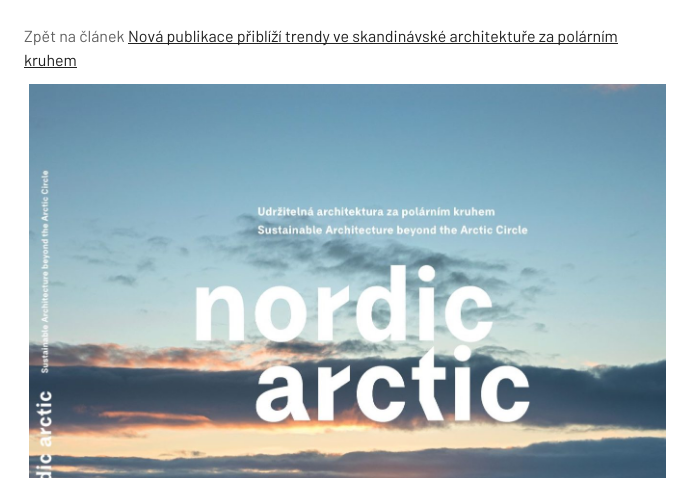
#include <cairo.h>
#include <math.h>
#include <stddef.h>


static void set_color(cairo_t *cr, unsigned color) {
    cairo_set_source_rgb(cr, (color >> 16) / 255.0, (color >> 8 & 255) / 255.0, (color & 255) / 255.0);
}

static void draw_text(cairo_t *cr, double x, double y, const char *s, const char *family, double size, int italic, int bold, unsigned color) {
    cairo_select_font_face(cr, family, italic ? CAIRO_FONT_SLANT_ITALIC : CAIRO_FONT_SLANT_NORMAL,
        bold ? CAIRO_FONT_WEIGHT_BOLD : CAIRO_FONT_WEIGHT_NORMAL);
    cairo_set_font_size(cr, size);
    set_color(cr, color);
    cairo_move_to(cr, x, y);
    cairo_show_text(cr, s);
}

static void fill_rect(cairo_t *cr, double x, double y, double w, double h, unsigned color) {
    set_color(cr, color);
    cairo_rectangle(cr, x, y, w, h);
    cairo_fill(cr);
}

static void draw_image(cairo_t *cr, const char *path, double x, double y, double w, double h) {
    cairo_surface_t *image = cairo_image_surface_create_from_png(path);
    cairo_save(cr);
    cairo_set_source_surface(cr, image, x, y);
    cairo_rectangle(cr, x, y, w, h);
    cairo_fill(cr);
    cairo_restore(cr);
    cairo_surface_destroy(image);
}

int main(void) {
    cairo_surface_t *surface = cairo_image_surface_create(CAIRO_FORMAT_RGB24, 695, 478);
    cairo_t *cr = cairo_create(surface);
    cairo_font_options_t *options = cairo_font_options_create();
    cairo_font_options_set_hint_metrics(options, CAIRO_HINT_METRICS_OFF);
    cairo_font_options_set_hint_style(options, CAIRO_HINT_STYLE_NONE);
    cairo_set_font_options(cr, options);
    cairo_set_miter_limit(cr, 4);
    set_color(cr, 0xFFFFFF);
    cairo_paint(cr);
    draw_text(cr, 24, 42, "Zpět na článek", "Barlow", 16, 0, 0, 0x616161);
    fill_rect(cr, 128, 43, 490, 1, 0x212121);
    draw_text(cr, 128, 42, "Nová publikace přiblíží trendy ve skandinávské architektuře za polárním", "Barlow", 16, 0, 0, 0x212121);
    draw_text(cr, 24, 66, "kruhem", "Barlow", 16, 0, 0, 0x212121);
    fill_rect(cr, 24, 67, 53, 1, 0x212121);
    draw_image(cr, "assets/img1.png", 29, 84, 637, 394);
    cairo_surface_write_to_png(surface, "output.png");
    cairo_font_options_destroy(options);
    cairo_destroy(cr);
    cairo_surface_destroy(surface);
    return 0;
}
